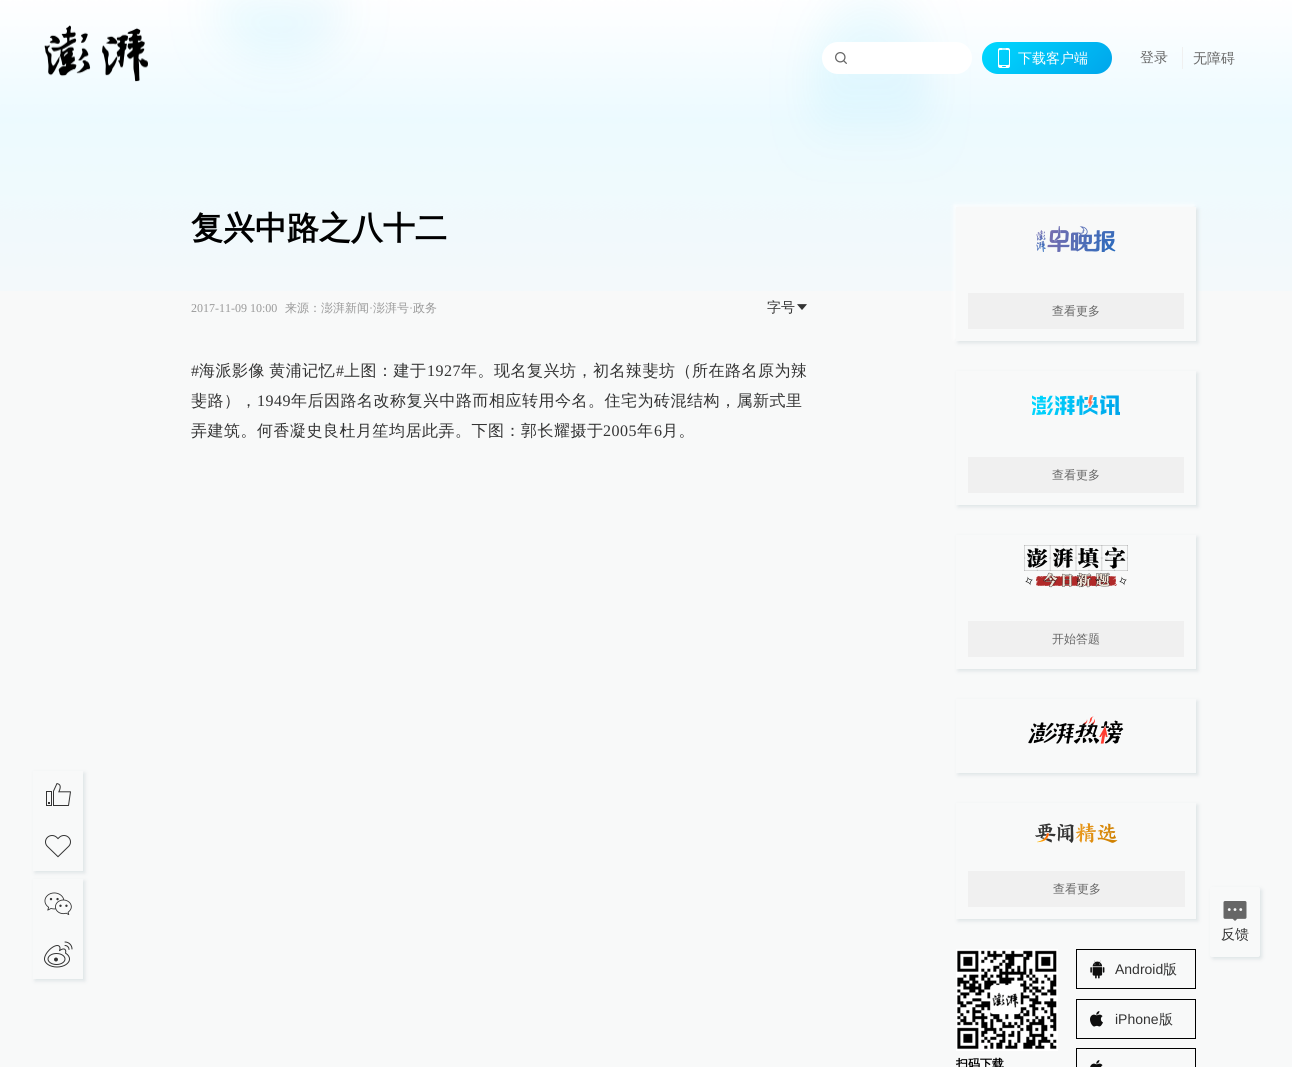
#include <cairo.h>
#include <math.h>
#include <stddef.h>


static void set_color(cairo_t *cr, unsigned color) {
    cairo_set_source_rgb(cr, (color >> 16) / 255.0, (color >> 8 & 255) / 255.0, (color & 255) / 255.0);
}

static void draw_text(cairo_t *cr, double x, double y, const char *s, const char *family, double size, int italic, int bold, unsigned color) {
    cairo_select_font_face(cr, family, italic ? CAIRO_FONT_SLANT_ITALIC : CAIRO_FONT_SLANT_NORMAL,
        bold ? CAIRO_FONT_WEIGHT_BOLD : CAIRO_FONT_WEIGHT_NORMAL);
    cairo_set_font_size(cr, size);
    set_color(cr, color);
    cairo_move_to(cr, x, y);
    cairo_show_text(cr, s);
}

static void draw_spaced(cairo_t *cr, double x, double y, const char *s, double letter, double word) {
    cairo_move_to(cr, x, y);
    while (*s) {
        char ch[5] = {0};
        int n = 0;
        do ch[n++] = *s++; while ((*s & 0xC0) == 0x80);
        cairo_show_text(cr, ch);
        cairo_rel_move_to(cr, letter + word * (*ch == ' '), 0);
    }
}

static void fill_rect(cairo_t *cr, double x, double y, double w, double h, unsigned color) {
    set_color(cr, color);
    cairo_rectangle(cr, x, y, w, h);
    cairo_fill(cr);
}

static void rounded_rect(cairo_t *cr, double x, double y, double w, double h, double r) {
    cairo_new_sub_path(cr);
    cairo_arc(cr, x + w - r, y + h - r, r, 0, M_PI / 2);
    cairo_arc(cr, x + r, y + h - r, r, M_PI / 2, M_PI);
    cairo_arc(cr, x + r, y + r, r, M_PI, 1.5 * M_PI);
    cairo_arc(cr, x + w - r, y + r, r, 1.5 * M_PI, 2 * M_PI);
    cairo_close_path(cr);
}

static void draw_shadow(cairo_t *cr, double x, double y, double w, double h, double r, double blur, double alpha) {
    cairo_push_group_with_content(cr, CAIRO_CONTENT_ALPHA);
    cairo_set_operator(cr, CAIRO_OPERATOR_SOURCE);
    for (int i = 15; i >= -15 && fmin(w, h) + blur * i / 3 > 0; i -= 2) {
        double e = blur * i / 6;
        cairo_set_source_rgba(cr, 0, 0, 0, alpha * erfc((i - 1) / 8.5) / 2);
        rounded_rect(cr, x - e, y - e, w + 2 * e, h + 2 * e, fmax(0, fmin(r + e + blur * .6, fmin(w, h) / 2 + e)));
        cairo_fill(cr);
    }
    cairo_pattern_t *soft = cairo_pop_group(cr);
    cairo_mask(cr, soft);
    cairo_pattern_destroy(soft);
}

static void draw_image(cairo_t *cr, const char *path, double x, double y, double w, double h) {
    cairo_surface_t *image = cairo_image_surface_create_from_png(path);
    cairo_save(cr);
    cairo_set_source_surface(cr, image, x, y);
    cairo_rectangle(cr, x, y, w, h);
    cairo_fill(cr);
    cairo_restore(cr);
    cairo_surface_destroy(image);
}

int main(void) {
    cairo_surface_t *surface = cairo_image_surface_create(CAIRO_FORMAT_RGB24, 1292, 1067);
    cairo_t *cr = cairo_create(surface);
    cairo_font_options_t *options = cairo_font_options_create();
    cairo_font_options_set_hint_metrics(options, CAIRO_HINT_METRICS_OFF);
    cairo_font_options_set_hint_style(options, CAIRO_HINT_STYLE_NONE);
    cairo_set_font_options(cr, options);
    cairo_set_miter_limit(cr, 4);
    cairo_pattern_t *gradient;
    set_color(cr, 0xF8F9F9);
    cairo_paint(cr);
    draw_image(cr, "assets/img1.png", 0, 0, 1292, 291);
    draw_image(cr, "assets/img2.png", 44, 25, 104, 57);
    set_color(cr, 0xFFFFFF);
    rounded_rect(cr, 822, 42, 150, 32, 16);
    cairo_fill(cr);
    draw_image(cr, "assets/img3.png", 835, 52, 12, 12);
    gradient = cairo_pattern_create_linear(1007, 18, 1088, 99);
    cairo_pattern_add_color_stop_rgba(gradient, 0, 0, 0.851, 1, 1);
    cairo_pattern_add_color_stop_rgba(gradient, 1, 0, 0.647, 0.922, 1);
    cairo_set_source(cr, gradient);
    cairo_pattern_destroy(gradient);
    rounded_rect(cr, 982, 42, 130, 32, 16);
    cairo_fill(cr);
    draw_image(cr, "assets/img4.png", 998, 48, 12, 20);
    draw_text(cr, 1018, 63, "下载客户端", "WenQuanYi Zen Hei Medium", 14, 0, 0, 0xFFFFFF);
    draw_text(cr, 1140, 62, "登录", "WenQuanYi Zen Hei Medium", 14, 0, 0, 0x666666);
    fill_rect(cr, 1182, 47, 1, 22, 0xF0F0F0);
    draw_text(cr, 1193, 63, "无障碍", "WenQuanYi Zen Hei Medium", 14, 0, 0, 0x666666);
    cairo_save(cr);
    cairo_set_fill_rule(cr, CAIRO_FILL_RULE_EVEN_ODD);
    cairo_new_path(cr);
    cairo_move_to(cr, 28, 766);
    cairo_line_to(cr, 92, 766);
    cairo_line_to(cr, 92, 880);
    cairo_line_to(cr, 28, 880);
    cairo_close_path(cr);
    cairo_move_to(cr, 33, 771);
    cairo_line_to(cr, 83, 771);
    cairo_line_to(cr, 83, 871);
    cairo_line_to(cr, 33, 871);
    cairo_close_path(cr);
    cairo_clip(cr);
    set_color(cr, 0xDEE4E6);
    draw_shadow(cr, 35, 773, 50, 100, 0, 2, 1);
    cairo_restore(cr);
    draw_image(cr, "assets/img5.png", 46, 783, 25, 23);
    draw_image(cr, "assets/img6.png", 45, 835, 26, 23);
    cairo_save(cr);
    cairo_set_fill_rule(cr, CAIRO_FILL_RULE_EVEN_ODD);
    cairo_new_path(cr);
    cairo_move_to(cr, 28, 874);
    cairo_line_to(cr, 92, 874);
    cairo_line_to(cr, 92, 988);
    cairo_line_to(cr, 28, 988);
    cairo_close_path(cr);
    cairo_move_to(cr, 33, 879);
    cairo_line_to(cr, 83, 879);
    cairo_line_to(cr, 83, 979);
    cairo_line_to(cr, 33, 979);
    cairo_close_path(cr);
    cairo_clip(cr);
    set_color(cr, 0xDEE4E6);
    draw_shadow(cr, 35, 881, 50, 100, 0, 2, 1);
    cairo_restore(cr);
    draw_image(cr, "assets/img7.png", 44, 892, 28, 23);
    draw_image(cr, "assets/img8.png", 44, 941, 29, 27);
    draw_text(cr, 191, 239, "复兴中路之八十二", "WenQuanYi Zen Hei", 32, 0, 1, 0x000000);
    draw_text(cr, 191, 312, "2017-11-09 10:00", "Liberation Serif", 12, 0, 0, 0x999999);
    draw_text(cr, 285, 312, "来源：澎湃新闻", "WenQuanYi Zen Hei Medium", 12, 0, 0, 0x999999);
    draw_text(cr, 369, 312, "·", "Liberation Serif", 12, 0, 0, 0x999999);
    draw_text(cr, 373, 312, "澎湃号", "WenQuanYi Zen Hei Medium", 12, 0, 0, 0x999999);
    draw_text(cr, 409, 312, "·", "Liberation Serif", 12, 0, 0, 0x999999);
    draw_text(cr, 413, 312, "政务", "WenQuanYi Zen Hei Medium", 12, 0, 0, 0x999999);
    draw_text(cr, 767, 312, "字号", "WenQuanYi Zen Hei Medium", 14, 0, 0, 0x333333);
    draw_image(cr, "assets/img9.png", 797, 304, 10, 6);
    cairo_select_font_face(cr, "Liberation Serif", CAIRO_FONT_SLANT_NORMAL, CAIRO_FONT_WEIGHT_NORMAL);
    cairo_set_font_size(cr, 16);
    draw_spaced(cr, 191, 376, "#", 0.5, 0);
    cairo_select_font_face(cr, "WenQuanYi Zen Hei Medium", CAIRO_FONT_SLANT_NORMAL, CAIRO_FONT_WEIGHT_NORMAL);
    draw_spaced(cr, 199, 376, "海派影像 黄浦记忆", 0.5, -1);
    cairo_select_font_face(cr, "Liberation Serif", CAIRO_FONT_SLANT_NORMAL, CAIRO_FONT_WEIGHT_NORMAL);
    draw_spaced(cr, 336, 376, "#", 0.5, 0);
    cairo_select_font_face(cr, "WenQuanYi Zen Hei Medium", CAIRO_FONT_SLANT_NORMAL, CAIRO_FONT_WEIGHT_NORMAL);
    draw_spaced(cr, 344, 376, "上图：建于", 0.5, 0);
    cairo_select_font_face(cr, "Liberation Serif", CAIRO_FONT_SLANT_NORMAL, CAIRO_FONT_WEIGHT_NORMAL);
    draw_spaced(cr, 427, 376, "1927", 0.5, 0);
    cairo_select_font_face(cr, "WenQuanYi Zen Hei Medium", CAIRO_FONT_SLANT_NORMAL, CAIRO_FONT_WEIGHT_NORMAL);
    draw_spaced(cr, 461, 376, "年。现名复兴坊，初名辣斐坊（所在路名原为辣", 0.5, 0);
    draw_spaced(cr, 191, 406, "斐路），", 0.5, 0);
    cairo_select_font_face(cr, "Liberation Serif", CAIRO_FONT_SLANT_NORMAL, CAIRO_FONT_WEIGHT_NORMAL);
    draw_spaced(cr, 257, 406, "1949", 0.5, 0);
    cairo_select_font_face(cr, "WenQuanYi Zen Hei Medium", CAIRO_FONT_SLANT_NORMAL, CAIRO_FONT_WEIGHT_NORMAL);
    draw_spaced(cr, 291, 406, "年后因路名改称复兴中路而相应转用今名。住宅为砖混结构，属新式里", 0.5, 0);
    draw_spaced(cr, 191, 436, "弄建筑。何香凝史良杜月笙均居此弄。下图：郭长耀摄于", 0.5, 0);
    cairo_select_font_face(cr, "Liberation Serif", CAIRO_FONT_SLANT_NORMAL, CAIRO_FONT_WEIGHT_NORMAL);
    draw_spaced(cr, 603, 436, "2005", 0.5, 0);
    cairo_select_font_face(cr, "WenQuanYi Zen Hei Medium", CAIRO_FONT_SLANT_NORMAL, CAIRO_FONT_WEIGHT_NORMAL);
    draw_spaced(cr, 637, 436, "年", 0.5, 0);
    cairo_select_font_face(cr, "Liberation Serif", CAIRO_FONT_SLANT_NORMAL, CAIRO_FONT_WEIGHT_NORMAL);
    draw_spaced(cr, 654, 436, "6", 0.5, 0);
    cairo_select_font_face(cr, "WenQuanYi Zen Hei Medium", CAIRO_FONT_SLANT_NORMAL, CAIRO_FONT_WEIGHT_NORMAL);
    draw_spaced(cr, 662, 436, "月。", 0.5, 0);
    set_color(cr, 0xFFFFFF);
    draw_shadow(cr, 954, 205, 240, 134, 0, 2, 1);
    set_color(cr, 0xDEE4E6);
    draw_shadow(cr, 958, 209, 240, 134, 0, 2, 1);
    fill_rect(cr, 956, 207, 240, 134, 0xF8F9F9);
    draw_image(cr, "assets/img10.png", 1036, 226, 80, 26);
    fill_rect(cr, 968, 293, 216, 36, 0xF0F0F0);
    draw_text(cr, 1052, 315, "查看更多", "WenQuanYi Zen Hei Medium", 12, 0, 0, 0x666666);
    cairo_save(cr);
    cairo_set_fill_rule(cr, CAIRO_FILL_RULE_EVEN_ODD);
    cairo_new_path(cr);
    cairo_move_to(cr, 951, 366);
    cairo_line_to(cr, 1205, 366);
    cairo_line_to(cr, 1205, 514);
    cairo_line_to(cr, 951, 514);
    cairo_close_path(cr);
    cairo_move_to(cr, 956, 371);
    cairo_line_to(cr, 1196, 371);
    cairo_line_to(cr, 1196, 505);
    cairo_line_to(cr, 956, 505);
    cairo_close_path(cr);
    cairo_clip(cr);
    set_color(cr, 0xDEE4E6);
    draw_shadow(cr, 958, 373, 240, 134, 0, 2, 1);
    cairo_restore(cr);
    draw_image(cr, "assets/img11.png", 1032, 395, 88, 20);
    fill_rect(cr, 968, 457, 216, 36, 0xF0F0F0);
    draw_text(cr, 1052, 479, "查看更多", "WenQuanYi Zen Hei Medium", 12, 0, 0, 0x666666);
    cairo_save(cr);
    cairo_set_fill_rule(cr, CAIRO_FILL_RULE_EVEN_ODD);
    cairo_new_path(cr);
    cairo_move_to(cr, 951, 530);
    cairo_line_to(cr, 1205, 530);
    cairo_line_to(cr, 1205, 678);
    cairo_line_to(cr, 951, 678);
    cairo_close_path(cr);
    cairo_move_to(cr, 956, 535);
    cairo_line_to(cr, 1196, 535);
    cairo_line_to(cr, 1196, 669);
    cairo_line_to(cr, 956, 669);
    cairo_close_path(cr);
    cairo_clip(cr);
    set_color(cr, 0xDEE4E6);
    draw_shadow(cr, 958, 537, 240, 134, 0, 2, 1);
    cairo_restore(cr);
    draw_image(cr, "assets/img12.png", 1024, 545, 104, 43);
    fill_rect(cr, 968, 621, 216, 36, 0xF0F0F0);
    draw_text(cr, 1052, 643, "开始答题", "WenQuanYi Zen Hei Medium", 12, 0, 0, 0x666666);
    cairo_save(cr);
    cairo_set_fill_rule(cr, CAIRO_FILL_RULE_EVEN_ODD);
    cairo_new_path(cr);
    cairo_move_to(cr, 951, 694);
    cairo_line_to(cr, 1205, 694);
    cairo_line_to(cr, 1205, 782);
    cairo_line_to(cr, 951, 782);
    cairo_close_path(cr);
    cairo_move_to(cr, 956, 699);
    cairo_line_to(cr, 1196, 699);
    cairo_line_to(cr, 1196, 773);
    cairo_line_to(cr, 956, 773);
    cairo_close_path(cr);
    cairo_clip(cr);
    set_color(cr, 0xDEE4E6);
    draw_shadow(cr, 958, 701, 240, 74, 0, 2, 1);
    cairo_restore(cr);
    draw_image(cr, "assets/img13.png", 1028, 716, 96, 28);
    cairo_save(cr);
    cairo_set_fill_rule(cr, CAIRO_FILL_RULE_EVEN_ODD);
    cairo_new_path(cr);
    cairo_move_to(cr, 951, 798);
    cairo_line_to(cr, 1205, 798);
    cairo_line_to(cr, 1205, 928);
    cairo_line_to(cr, 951, 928);
    cairo_close_path(cr);
    cairo_move_to(cr, 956, 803);
    cairo_line_to(cr, 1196, 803);
    cairo_line_to(cr, 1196, 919);
    cairo_line_to(cr, 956, 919);
    cairo_close_path(cr);
    cairo_clip(cr);
    set_color(cr, 0xDEE4E6);
    draw_shadow(cr, 958, 805, 240, 116, 0, 2, 1);
    cairo_restore(cr);
    draw_image(cr, "assets/img14.png", 1035, 823, 83, 20);
    fill_rect(cr, 968, 871, 217, 36, 0xF0F0F0);
    draw_text(cr, 1053, 893, "查看更多", "WenQuanYi Zen Hei Medium", 12, 0, 0, 0x666666);
    cairo_rectangle(cr, 1076.5, 949.5, 119, 39);
    set_color(cr, 0x000000);
    cairo_set_line_width(cr, 1);
    cairo_stroke(cr);
    draw_image(cr, "assets/img15.png", 1090, 960, 15, 19);
    draw_text(cr, 1115, 974, "Android", "Liberation Sans", 14, 0, 0, 0x333333);
    draw_text(cr, 1163, 974, "版", "WenQuanYi Zen Hei Medium", 14, 0, 0, 0x333333);
    cairo_rectangle(cr, 1076.5, 999.5, 119, 39);
    set_color(cr, 0x000000);
    cairo_stroke(cr);
    draw_image(cr, "assets/img16.png", 1090, 1011, 13, 16);
    draw_text(cr, 1115, 1024, "iPhone", "Liberation Sans", 14, 0, 0, 0x333333);
    draw_text(cr, 1159, 1024, "版", "WenQuanYi Zen Hei Medium", 14, 0, 0, 0x333333);
    cairo_rectangle(cr, 1076.5, 1048.5, 119, 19);
    set_color(cr, 0x000000);
    cairo_stroke(cr);
    draw_image(cr, "assets/img17.png", 1090, 1060, 13, 7);
    draw_image(cr, "assets/img18.png", 956, 949, 102, 102);
    draw_text(cr, 956, 1068, "扫码下载", "WenQuanYi Zen Hei", 12, 0, 1, 0x000000);
    set_color(cr, 0xDEE4E6);
    draw_shadow(cr, 1212, 889, 50, 70, 2, 2, 1);
    set_color(cr, 0xF8F9F9);
    rounded_rect(cr, 1210, 887, 50, 70, 2);
    cairo_fill(cr);
    draw_image(cr, "assets/img19.png", 1223, 901, 24, 20);
    draw_text(cr, 1221, 939, "反馈", "WenQuanYi Zen Hei Medium", 14, 0, 0, 0x333333);
    cairo_surface_write_to_png(surface, "output.png");
    cairo_font_options_destroy(options);
    cairo_destroy(cr);
    cairo_surface_destroy(surface);
    return 0;
}
